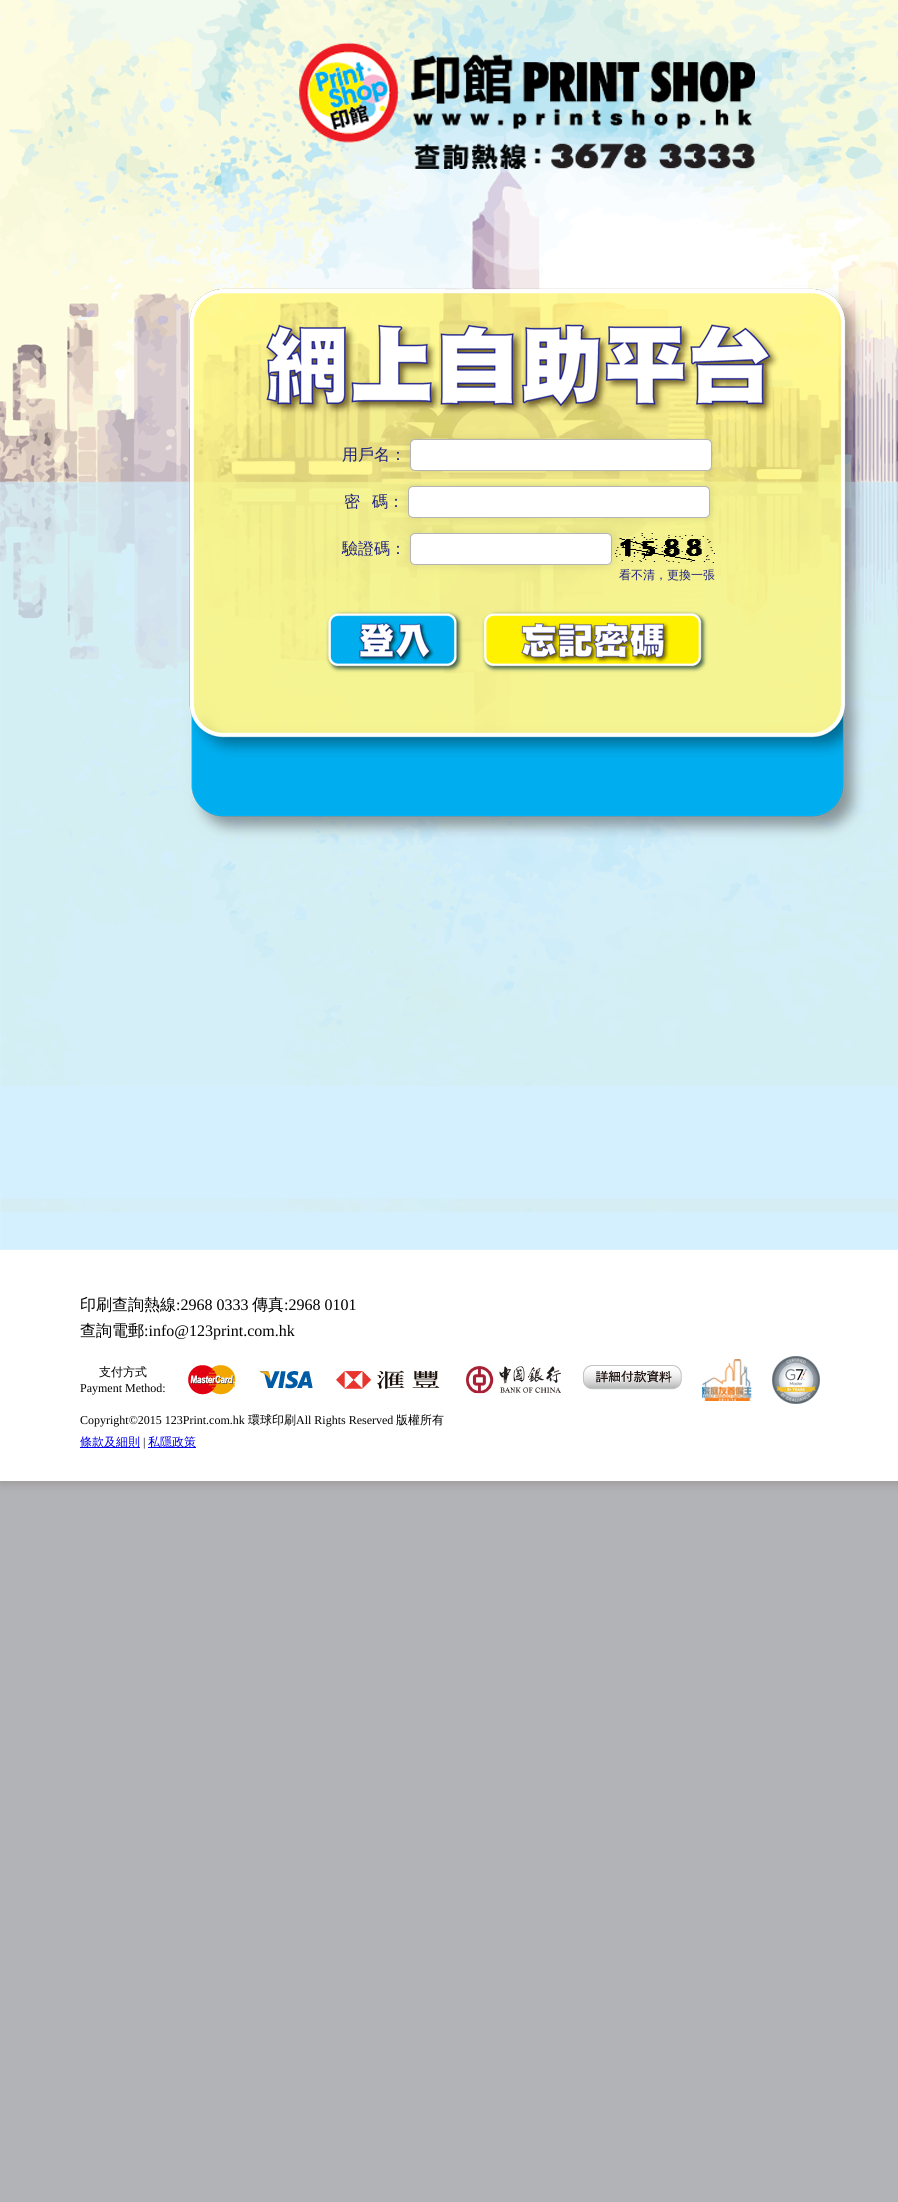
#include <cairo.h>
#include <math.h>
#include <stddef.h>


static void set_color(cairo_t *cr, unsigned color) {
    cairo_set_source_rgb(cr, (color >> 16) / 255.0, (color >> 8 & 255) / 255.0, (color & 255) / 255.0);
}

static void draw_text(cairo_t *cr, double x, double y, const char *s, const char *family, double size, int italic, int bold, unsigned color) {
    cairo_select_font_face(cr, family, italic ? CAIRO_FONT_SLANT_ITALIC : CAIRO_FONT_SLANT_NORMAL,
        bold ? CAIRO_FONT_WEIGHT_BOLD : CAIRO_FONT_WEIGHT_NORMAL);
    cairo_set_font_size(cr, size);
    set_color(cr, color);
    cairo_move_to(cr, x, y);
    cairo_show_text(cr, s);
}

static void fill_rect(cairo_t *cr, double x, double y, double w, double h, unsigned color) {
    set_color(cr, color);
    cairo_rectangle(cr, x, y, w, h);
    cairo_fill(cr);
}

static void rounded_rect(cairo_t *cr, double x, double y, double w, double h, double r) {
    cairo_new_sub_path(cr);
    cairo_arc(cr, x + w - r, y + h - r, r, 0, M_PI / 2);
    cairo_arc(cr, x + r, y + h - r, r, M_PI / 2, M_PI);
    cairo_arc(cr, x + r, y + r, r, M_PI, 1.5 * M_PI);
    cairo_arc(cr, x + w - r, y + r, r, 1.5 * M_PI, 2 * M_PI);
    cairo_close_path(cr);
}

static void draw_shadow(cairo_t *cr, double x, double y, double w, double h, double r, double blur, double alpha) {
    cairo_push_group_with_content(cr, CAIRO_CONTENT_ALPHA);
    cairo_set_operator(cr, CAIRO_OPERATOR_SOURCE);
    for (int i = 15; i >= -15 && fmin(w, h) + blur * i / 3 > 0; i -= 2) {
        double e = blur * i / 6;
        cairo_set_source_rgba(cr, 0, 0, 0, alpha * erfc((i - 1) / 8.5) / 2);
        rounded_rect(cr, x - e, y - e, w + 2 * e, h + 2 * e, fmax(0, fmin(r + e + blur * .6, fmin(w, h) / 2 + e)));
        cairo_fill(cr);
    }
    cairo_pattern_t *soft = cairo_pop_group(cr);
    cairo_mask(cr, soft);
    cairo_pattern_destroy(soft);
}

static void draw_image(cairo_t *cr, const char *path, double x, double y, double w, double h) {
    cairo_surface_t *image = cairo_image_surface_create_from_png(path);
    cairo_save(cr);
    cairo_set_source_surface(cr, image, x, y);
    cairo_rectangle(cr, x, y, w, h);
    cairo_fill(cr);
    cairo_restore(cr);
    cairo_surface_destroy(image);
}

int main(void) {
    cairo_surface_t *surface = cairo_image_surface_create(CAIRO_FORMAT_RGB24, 898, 2202);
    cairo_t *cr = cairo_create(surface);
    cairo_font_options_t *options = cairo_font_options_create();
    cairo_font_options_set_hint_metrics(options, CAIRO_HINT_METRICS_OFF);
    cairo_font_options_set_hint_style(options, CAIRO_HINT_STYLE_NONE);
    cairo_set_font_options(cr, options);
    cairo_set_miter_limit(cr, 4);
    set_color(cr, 0xB1B3B6);
    cairo_paint(cr);
    set_color(cr, 0x9A9494);
    draw_shadow(cr, 0, 2, 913, 1481, 0, 5, 1);
    fill_rect(cr, 0, 1250, 898, 231, 0xFFFFFF);
    draw_image(cr, "assets/img1.png", 0, 0, 898, 1250);
    draw_text(cr, 342, 460, "用戶名：", "WenQuanYi Zen Hei Medium", 16, 0, 0, 0x1D207F);
    set_color(cr, 0x000000);
    draw_shadow(cr, 410, 439, 302, 32, 5, 5, 0.1);
    set_color(cr, 0xFFFFFF);
    rounded_rect(cr, 410.5, 439.5, 301, 31, 4.5);
    cairo_fill_preserve(cr);
    set_color(cr, 0xB4B4B4);
    cairo_set_line_width(cr, 1);
    cairo_stroke(cr);
    draw_text(cr, 344, 507, "密", "WenQuanYi Zen Hei Medium", 16, 0, 0, 0x1D207F);
    draw_text(cr, 372, 507, "碼：", "WenQuanYi Zen Hei Medium", 16, 0, 0, 0x1D207F);
    draw_image(cr, "assets/img2.png", 615, 533, 100, 30);
    set_color(cr, 0x000000);
    draw_shadow(cr, 408, 486, 302, 32, 5, 5, 0.1);
    set_color(cr, 0xFFFFFF);
    rounded_rect(cr, 408.5, 486.5, 301, 31, 4.5);
    cairo_fill_preserve(cr);
    set_color(cr, 0xB4B4B4);
    cairo_stroke(cr);
    draw_text(cr, 342, 554, "驗證碼：", "WenQuanYi Zen Hei Medium", 16, 0, 0, 0x1D207F);
    set_color(cr, 0x000000);
    draw_shadow(cr, 410, 533, 202, 32, 5, 5, 0.1);
    set_color(cr, 0xFFFFFF);
    rounded_rect(cr, 410.5, 533.5, 201, 31, 4.5);
    cairo_fill_preserve(cr);
    set_color(cr, 0xB4B4B4);
    cairo_stroke(cr);
    draw_text(cr, 619, 579, "看不清，更換一張", "WenQuanYi Zen Hei Medium", 12, 0, 0, 0x1D207F);
    draw_text(cr, 80, 1310, "印刷查詢熱線", "WenQuanYi Zen Hei Medium", 16, 0, 0, 0x000000);
    draw_text(cr, 176, 1310, ":2968 0333", "Liberation Serif", 16, 0, 0, 0x000000);
    draw_text(cr, 252, 1310, "傳真", "WenQuanYi Zen Hei Medium", 16, 0, 0, 0x000000);
    draw_text(cr, 284, 1310, ":2968 0101", "Liberation Serif", 16, 0, 0, 0x000000);
    draw_text(cr, 80, 1336, "查詢電郵", "WenQuanYi Zen Hei Medium", 16, 0, 0, 0x000000);
    draw_text(cr, 144, 1336, ":info@123print.com.hk", "Liberation Serif", 16, 0, 0, 0x000000);
    draw_text(cr, 99, 1376, "支付方式", "WenQuanYi Zen Hei Medium", 12, 0, 0, 0x000000);
    draw_text(cr, 80, 1392, "Payment Method:", "Liberation Serif", 12, 0, 0, 0x000000);
    draw_image(cr, "assets/img3.png", 188, 1365, 48, 30);
    draw_image(cr, "assets/img4.png", 259, 1371, 54, 18);
    draw_image(cr, "assets/img5.png", 336, 1370, 104, 19);
    draw_image(cr, "assets/img6.png", 466, 1366, 95, 28);
    draw_image(cr, "assets/img7.png", 583, 1365, 99, 25);
    draw_image(cr, "assets/img8.png", 702, 1359, 50, 42);
    draw_image(cr, "assets/img9.png", 772, 1356, 48, 48);
    draw_text(cr, 80, 1424, "Copyright©2015 123Print.com.hk", "Liberation Serif", 12, 0, 0, 0x000000);
    draw_text(cr, 248, 1424, "環球印刷", "WenQuanYi Zen Hei Medium", 12, 0, 0, 0x000000);
    draw_text(cr, 296, 1424, "All Rights Reserved", "Liberation Serif", 12, 0, 0, 0x000000);
    draw_text(cr, 396, 1424, "版權所有", "WenQuanYi Zen Hei Medium", 12, 0, 0, 0x000000);
    fill_rect(cr, 80, 1447, 60, 1, 0x0000EE);
    draw_text(cr, 80, 1446, "條款及細則", "WenQuanYi Zen Hei Medium", 12, 0, 0, 0x0000EE);
    draw_text(cr, 143, 1446, "|", "Liberation Serif", 12, 0, 0, 0x000000);
    fill_rect(cr, 148, 1447, 48, 1, 0x0000EE);
    draw_text(cr, 148, 1446, "私隱政策", "WenQuanYi Zen Hei Medium", 12, 0, 0, 0x0000EE);
    cairo_surface_write_to_png(surface, "output.png");
    cairo_font_options_destroy(options);
    cairo_destroy(cr);
    cairo_surface_destroy(surface);
    return 0;
}
